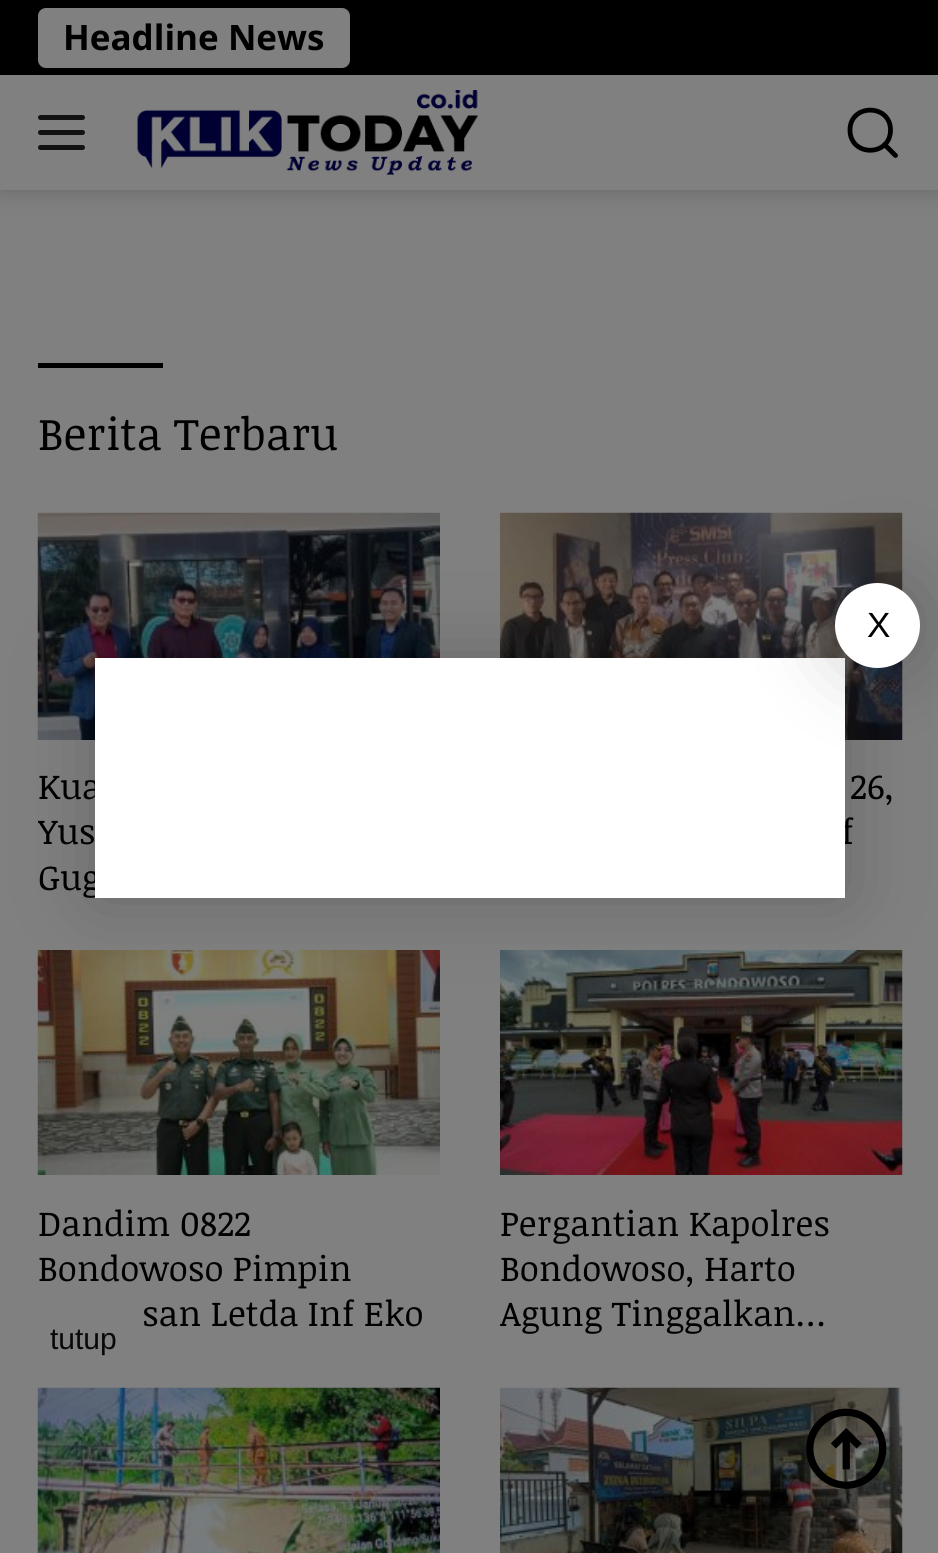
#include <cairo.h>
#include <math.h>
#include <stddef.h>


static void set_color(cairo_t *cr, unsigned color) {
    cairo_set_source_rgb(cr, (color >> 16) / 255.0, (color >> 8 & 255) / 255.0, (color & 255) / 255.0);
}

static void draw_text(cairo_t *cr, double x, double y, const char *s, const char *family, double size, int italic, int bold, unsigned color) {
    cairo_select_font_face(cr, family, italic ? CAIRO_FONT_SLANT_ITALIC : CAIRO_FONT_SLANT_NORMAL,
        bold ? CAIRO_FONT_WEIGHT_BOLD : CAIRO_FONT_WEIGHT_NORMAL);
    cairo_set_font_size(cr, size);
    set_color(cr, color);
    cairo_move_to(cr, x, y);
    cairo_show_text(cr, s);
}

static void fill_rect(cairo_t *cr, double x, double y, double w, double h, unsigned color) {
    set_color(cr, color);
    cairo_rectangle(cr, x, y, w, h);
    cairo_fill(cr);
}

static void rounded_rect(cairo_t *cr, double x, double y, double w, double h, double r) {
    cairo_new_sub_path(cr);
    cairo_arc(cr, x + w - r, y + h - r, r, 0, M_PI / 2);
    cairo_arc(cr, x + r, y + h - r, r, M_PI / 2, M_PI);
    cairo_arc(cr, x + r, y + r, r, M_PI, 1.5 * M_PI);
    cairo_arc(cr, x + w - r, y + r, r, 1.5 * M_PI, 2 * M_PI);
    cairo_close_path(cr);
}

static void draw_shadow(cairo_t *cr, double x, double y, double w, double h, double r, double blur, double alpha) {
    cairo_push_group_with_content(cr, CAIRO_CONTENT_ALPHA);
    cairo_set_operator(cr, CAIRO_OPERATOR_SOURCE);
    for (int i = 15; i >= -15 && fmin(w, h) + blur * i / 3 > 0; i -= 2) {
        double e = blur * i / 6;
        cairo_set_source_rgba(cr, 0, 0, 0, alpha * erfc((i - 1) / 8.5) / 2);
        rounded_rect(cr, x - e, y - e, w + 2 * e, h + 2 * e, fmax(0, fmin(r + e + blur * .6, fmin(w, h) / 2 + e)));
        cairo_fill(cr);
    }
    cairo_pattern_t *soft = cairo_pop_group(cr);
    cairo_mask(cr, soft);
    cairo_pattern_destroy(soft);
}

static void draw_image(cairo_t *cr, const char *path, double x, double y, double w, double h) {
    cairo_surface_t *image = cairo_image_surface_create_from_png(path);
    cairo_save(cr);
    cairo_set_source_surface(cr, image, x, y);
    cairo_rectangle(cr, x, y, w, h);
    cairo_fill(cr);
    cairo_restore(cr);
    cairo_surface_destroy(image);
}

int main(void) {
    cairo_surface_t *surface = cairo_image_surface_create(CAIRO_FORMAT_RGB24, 938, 1553);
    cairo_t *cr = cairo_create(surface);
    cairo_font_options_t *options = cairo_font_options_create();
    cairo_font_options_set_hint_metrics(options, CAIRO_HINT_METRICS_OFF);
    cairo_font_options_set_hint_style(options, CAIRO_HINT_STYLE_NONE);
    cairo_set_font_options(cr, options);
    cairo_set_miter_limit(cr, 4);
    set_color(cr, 0x808080);
    cairo_paint(cr);
    set_color(cr, 0x000000);
    draw_shadow(cr, 0, 0, 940, 190, 0, 12.5, 0.2);
    fill_rect(cr, 0, 75, 938, 115, 0x808080);
    fill_rect(cr, 0, 0, 938, 75, 0x000000);
    set_color(cr, 0x808080);
    rounded_rect(cr, 38, 8, 312, 60, 8);
    cairo_fill(cr);
    draw_text(cr, 63, 50, "Headline News", "Open Sans", 35, 0, 1, 0x000000);
    set_color(cr, 0x111111);
    rounded_rect(cr, 38, 115, 47, 5, 2.5);
    cairo_fill(cr);
    rounded_rect(cr, 38, 130, 47, 5, 2.5);
    cairo_fill(cr);
    rounded_rect(cr, 38, 145, 47, 5, 2.5);
    cairo_fill(cr);
    draw_image(cr, "assets/img1.png", 137, 90, 342, 85);
    cairo_new_path(cr);
    cairo_move_to(cr, 895.5, 155.5);
    cairo_line_to(cr, 884.5, 144.5);
    cairo_move_to(cr, 890.5, 130);
    cairo_curve_to(cr, 890.5, 157, 850, 157, 850, 130);
    cairo_curve_to(cr, 850, 103.5, 890.5, 103.5, 890.5, 130);
    cairo_close_path(cr);
    set_color(cr, 0x000000);
    cairo_set_line_width(cr, 4.8);
    cairo_set_line_cap(cr, CAIRO_LINE_CAP_ROUND);
    cairo_stroke(cr);
    fill_rect(cr, 38, 363, 125, 5, 0x000000);
    draw_text(cr, 38, 450, "Berita Terbaru", "Noticia Text", 45, 0, 0, 0x000000);
    draw_image(cr, "assets/img2.png", 37, 512, 403, 228);
    draw_text(cr, 38, 799, "Kua", "Noticia Text", 35, 0, 0, 0x000000);
    cairo_save(cr);
    cairo_rectangle(cr, 38, 765, 402, 135);
    cairo_clip(cr);
    draw_text(cr, 38, 844, "Yus", "Noticia Text", 35, 0, 0, 0x000000);
    cairo_restore(cr);
    draw_text(cr, 38, 890, "Gug", "Noticia Text", 35, 0, 0, 0x000000);
    draw_image(cr, "assets/img3.png", 500, 512, 403, 228);
    draw_text(cr, 850, 799, "26,", "Noticia Text", 35, 0, 0, 0x000000);
    draw_text(cr, 841, 844, "f", "Noticia Text", 35, 0, 0, 0x000000);
    draw_image(cr, "assets/img4.png", 37, 950, 403, 225);
    draw_text(cr, 38, 1236, "Dandim 0822", "Noticia Text", 35, 0, 0, 0x000000);
    draw_text(cr, 38, 1281, "Bondowoso Pimpin", "Noticia Text", 35, 0, 0, 0x000000);
    draw_text(cr, 142, 1326, "san Letda Inf Eko", "Noticia Text", 35, 0, 0, 0x000000);
    draw_image(cr, "assets/img5.png", 500, 950, 403, 225);
    draw_text(cr, 500, 1236, "Pergantian Kapolres", "Noticia Text", 35, 0, 0, 0x000000);
    draw_text(cr, 500, 1281, "Bondowoso, Harto", "Noticia Text", 35, 0, 0, 0x000000);
    draw_text(cr, 500, 1326, "Agung Tinggalkan…", "Noticia Text", 35, 0, 0, 0x000000);
    draw_image(cr, "assets/img6.png", 37, 1387, 403, 166);
    draw_image(cr, "assets/img7.png", 500, 1387, 403, 166);
    set_color(cr, 0x000000);
    draw_shadow(cr, 95, 658, 750, 240, 0, 40, 0.2);
    fill_rect(cr, 95, 658, 750, 240, 0xFFFFFF);
    set_color(cr, 0x000000);
    draw_shadow(cr, 835, 583, 85, 85, 42.5, 40, 0.2);
    set_color(cr, 0xFFFFFF);
    cairo_arc(cr, 877.5, 625.5, 42.5, 0, 2 * M_PI);
    cairo_fill(cr);
    draw_text(cr, 867, 637, "X", "Liberation Sans", 35, 0, 0, 0x000000);
    draw_text(cr, 50, 1349, "tutup", "Liberation Sans", 30, 0, 0, 0x090909);
    draw_image(cr, "assets/img8.png", 806, 1408, 81, 81);
    cairo_surface_write_to_png(surface, "output.png");
    cairo_font_options_destroy(options);
    cairo_destroy(cr);
    cairo_surface_destroy(surface);
    return 0;
}
